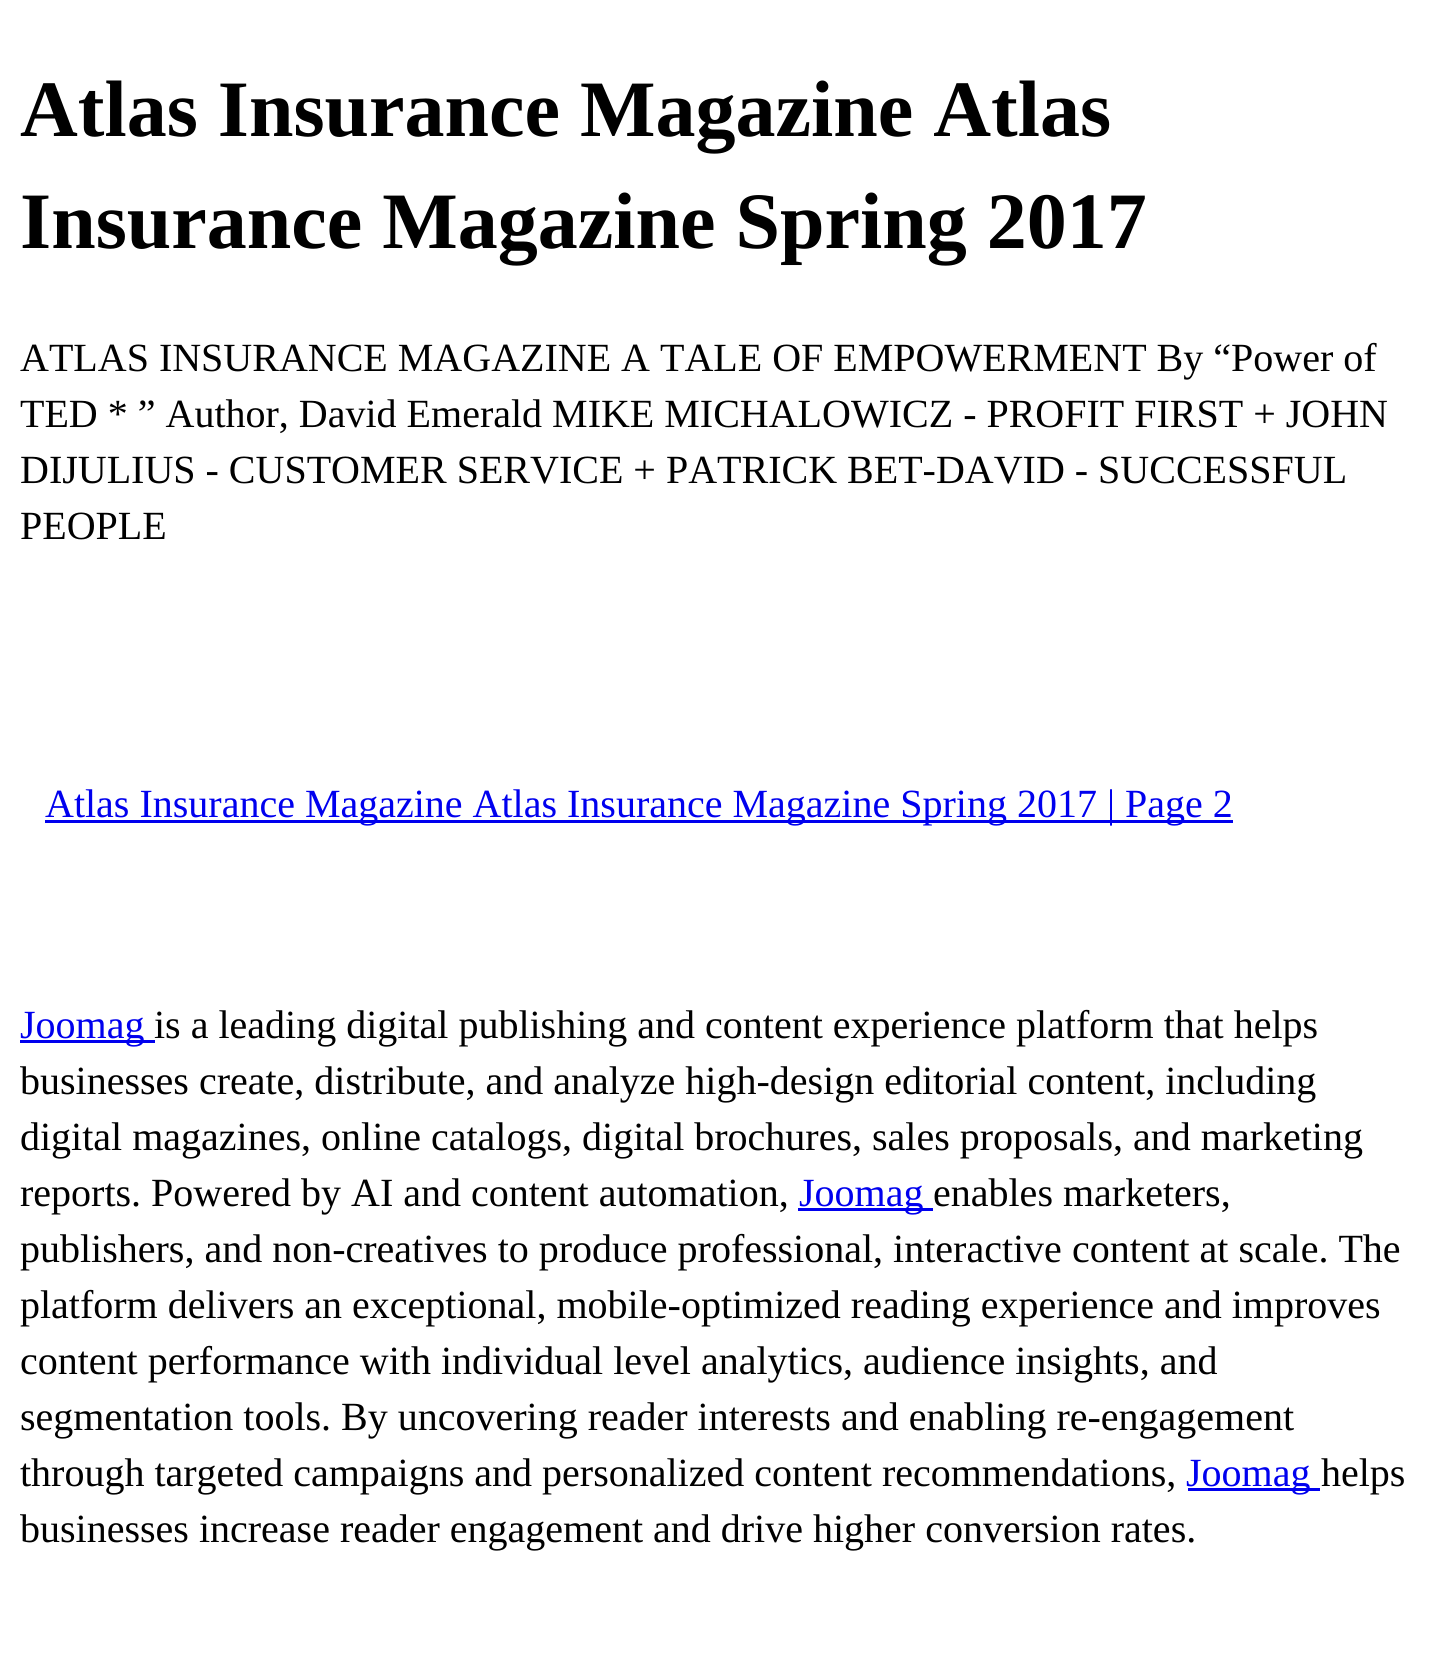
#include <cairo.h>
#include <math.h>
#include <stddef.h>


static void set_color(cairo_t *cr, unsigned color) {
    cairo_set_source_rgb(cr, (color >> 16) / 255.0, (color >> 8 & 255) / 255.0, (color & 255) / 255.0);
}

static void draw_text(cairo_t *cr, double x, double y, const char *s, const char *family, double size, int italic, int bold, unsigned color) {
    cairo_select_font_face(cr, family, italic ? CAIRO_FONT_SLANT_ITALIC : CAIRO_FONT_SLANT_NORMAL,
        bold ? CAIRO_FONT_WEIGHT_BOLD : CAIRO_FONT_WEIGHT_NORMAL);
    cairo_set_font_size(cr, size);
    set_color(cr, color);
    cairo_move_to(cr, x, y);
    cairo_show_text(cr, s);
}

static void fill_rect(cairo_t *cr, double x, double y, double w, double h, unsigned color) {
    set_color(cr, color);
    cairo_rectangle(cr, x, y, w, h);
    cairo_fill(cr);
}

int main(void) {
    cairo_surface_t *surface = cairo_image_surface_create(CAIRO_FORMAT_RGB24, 1433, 1661);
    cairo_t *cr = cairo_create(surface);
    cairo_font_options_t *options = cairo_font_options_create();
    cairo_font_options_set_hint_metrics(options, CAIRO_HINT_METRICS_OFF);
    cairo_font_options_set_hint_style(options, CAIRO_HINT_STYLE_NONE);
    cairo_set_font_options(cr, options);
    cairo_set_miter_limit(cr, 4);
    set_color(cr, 0xFFFFFF);
    cairo_paint(cr);
    draw_text(cr, 20, 136, "Atlas Insurance Magazine Atlas", "Liberation Serif", 80, 0, 1, 0x000000);
    draw_text(cr, 20, 248, "Insurance Magazine Spring 2017", "Liberation Serif", 80, 0, 1, 0x000000);
    draw_text(cr, 20, 371, "ATLAS INSURANCE MAGAZINE A TALE OF EMPOWERMENT By “Power of", "Liberation Serif", 40, 0, 0, 0x000000);
    draw_text(cr, 20, 427, "TED * ” Author, David Emerald MIKE MICHALOWICZ - PROFIT FIRST + JOHN", "Liberation Serif", 40, 0, 0, 0x000000);
    draw_text(cr, 20, 483, "DIJULIUS - CUSTOMER SERVICE + PATRICK BET-DAVID - SUCCESSFUL", "Liberation Serif", 40, 0, 0, 0x000000);
    draw_text(cr, 20, 539, "PEOPLE", "Liberation Serif", 40, 0, 0, 0x000000);
    fill_rect(cr, 45, 820, 1188, 3, 0x0000EE);
    draw_text(cr, 45, 817, "Atlas Insurance Magazine Atlas Insurance Magazine Spring 2017 | Page 2", "Liberation Serif", 40, 0, 0, 0x0000EE);
    fill_rect(cr, 20, 1040, 135, 3, 0x0000EE);
    draw_text(cr, 20, 1038, "Joomag", "Liberation Serif", 40, 0, 0, 0x0000EE);
    draw_text(cr, 154, 1038, "is a leading digital publishing and content experience platform that helps", "Liberation Serif", 40, 0, 0, 0x000000);
    draw_text(cr, 20, 1094, "businesses create, distribute, and analyze high-design editorial content, including", "Liberation Serif", 40, 0, 0, 0x000000);
    draw_text(cr, 20, 1150, "digital magazines, online catalogs, digital brochures, sales proposals, and marketing", "Liberation Serif", 40, 0, 0, 0x000000);
    draw_text(cr, 20, 1206, "reports. Powered by AI and content automation,", "Liberation Serif", 40, 0, 0, 0x000000);
    fill_rect(cr, 798, 1208, 135, 3, 0x0000EE);
    draw_text(cr, 799, 1206, "Joomag", "Liberation Serif", 40, 0, 0, 0x0000EE);
    draw_text(cr, 933, 1206, "enables marketers,", "Liberation Serif", 40, 0, 0, 0x000000);
    draw_text(cr, 20, 1262, "publishers, and non-creatives to produce professional, interactive content at scale. The", "Liberation Serif", 40, 0, 0, 0x000000);
    draw_text(cr, 20, 1318, "platform delivers an exceptional, mobile-optimized reading experience and improves", "Liberation Serif", 40, 0, 0, 0x000000);
    draw_text(cr, 20, 1374, "content performance with individual level analytics, audience insights, and", "Liberation Serif", 40, 0, 0, 0x000000);
    draw_text(cr, 20, 1430, "segmentation tools. By uncovering reader interests and enabling re-engagement", "Liberation Serif", 40, 0, 0, 0x000000);
    draw_text(cr, 20, 1486, "through targeted campaigns and personalized content recommendations,", "Liberation Serif", 40, 0, 0, 0x000000);
    fill_rect(cr, 1188, 1488, 132, 3, 0x0000EE);
    draw_text(cr, 1186, 1486, "Joomag", "Liberation Serif", 40, 0, 0, 0x0000EE);
    draw_text(cr, 1321, 1486, "helps", "Liberation Serif", 40, 0, 0, 0x000000);
    draw_text(cr, 20, 1542, "businesses increase reader engagement and drive higher conversion rates.", "Liberation Serif", 40, 0, 0, 0x000000);
    cairo_surface_write_to_png(surface, "output.png");
    cairo_font_options_destroy(options);
    cairo_destroy(cr);
    cairo_surface_destroy(surface);
    return 0;
}
